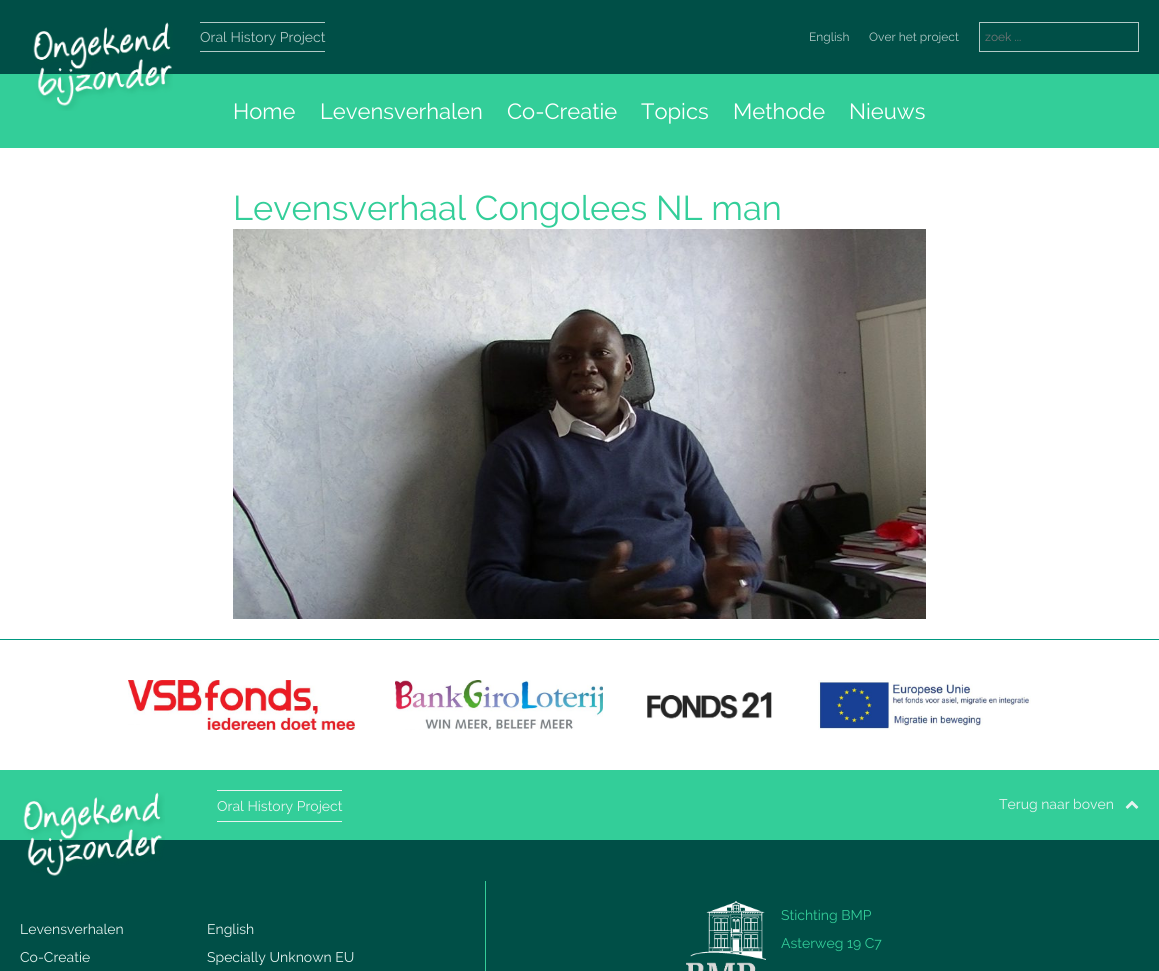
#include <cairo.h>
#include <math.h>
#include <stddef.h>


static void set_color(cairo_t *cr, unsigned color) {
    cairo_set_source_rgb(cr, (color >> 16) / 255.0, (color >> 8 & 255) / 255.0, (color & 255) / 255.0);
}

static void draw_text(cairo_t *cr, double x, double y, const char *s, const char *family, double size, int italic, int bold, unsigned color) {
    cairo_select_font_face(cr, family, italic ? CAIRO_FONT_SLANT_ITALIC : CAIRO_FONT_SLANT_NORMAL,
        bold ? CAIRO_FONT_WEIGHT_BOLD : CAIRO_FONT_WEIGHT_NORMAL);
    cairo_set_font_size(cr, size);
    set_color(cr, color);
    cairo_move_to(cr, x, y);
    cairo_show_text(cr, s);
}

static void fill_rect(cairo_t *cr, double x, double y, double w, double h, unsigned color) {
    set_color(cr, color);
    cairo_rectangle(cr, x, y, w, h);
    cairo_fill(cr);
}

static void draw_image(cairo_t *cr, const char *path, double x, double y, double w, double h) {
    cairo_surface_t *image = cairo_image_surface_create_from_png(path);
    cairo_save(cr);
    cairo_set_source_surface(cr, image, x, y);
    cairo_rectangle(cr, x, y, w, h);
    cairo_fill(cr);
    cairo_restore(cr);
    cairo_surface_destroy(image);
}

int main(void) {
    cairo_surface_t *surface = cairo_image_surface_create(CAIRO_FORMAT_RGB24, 1159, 971);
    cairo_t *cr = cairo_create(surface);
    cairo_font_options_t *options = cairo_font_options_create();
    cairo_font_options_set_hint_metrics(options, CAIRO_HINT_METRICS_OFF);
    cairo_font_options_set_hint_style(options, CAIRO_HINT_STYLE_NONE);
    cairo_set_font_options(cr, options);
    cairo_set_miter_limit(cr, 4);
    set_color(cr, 0xFFFFFF);
    cairo_paint(cr);
    fill_rect(cr, 0, 0, 1159, 74, 0x004F47);
    fill_rect(cr, 0, 74, 1159, 74, 0x33CE99);
    draw_image(cr, "assets/img1.png", 33, 22, 140, 89);
    fill_rect(cr, 200, 22, 125, 1, 0xB2CAC7);
    fill_rect(cr, 200, 51, 125, 1, 0xB2CAC7);
    draw_text(cr, 200, 42, "Oral History Project", "Raleway", 14, 0, 0, 0xB2CAC7);
    draw_text(cr, 809, 41, "English", "Raleway", 12, 0, 0, 0xB2CAC7);
    draw_text(cr, 869, 41, "Over het project", "Raleway", 12, 0, 0, 0xB2CAC7);
    cairo_rectangle(cr, 979.5, 22.5, 159, 29);
    cairo_set_line_width(cr, 1);
    cairo_stroke(cr);
    draw_text(cr, 985, 41, "zoek ...", "Raleway", 12, 0, 0, 0x757575);
    draw_text(cr, 233, 119, "Home", "Raleway", 22, 0, 0, 0xFFFFFF);
    draw_text(cr, 320, 119, "Levensverhalen", "Raleway", 22, 0, 0, 0xFFFFFF);
    draw_text(cr, 507, 119, "Co-Creatie", "Raleway", 22, 0, 0, 0xFFFFFF);
    draw_text(cr, 641, 119, "Topics", "Raleway", 22, 0, 0, 0xFFFFFF);
    draw_text(cr, 733, 119, "Methode", "Raleway", 22, 0, 0, 0xFFFFFF);
    draw_text(cr, 849, 119, "Nieuws", "Raleway", 22, 0, 0, 0xFFFFFF);
    draw_text(cr, 233, 220, "Levensverhaal Congolees NL man", "Raleway", 34.4, 0, 0, 0x33CE99);
    draw_image(cr, "assets/img2.png", 233, 229, 693, 390);
    fill_rect(cr, 0, 639, 1159, 1, 0x009880);
    draw_image(cr, "assets/img3.png", 128, 680, 227, 50);
    draw_image(cr, "assets/img4.png", 395, 680, 208, 50);
    draw_image(cr, "assets/img5.png", 647, 692, 125, 27);
    draw_image(cr, "assets/img6.png", 818, 680, 213, 50);
    fill_rect(cr, 0, 840, 1159, 131, 0x004F47);
    fill_rect(cr, 0, 770, 1159, 70, 0x33CE99);
    draw_image(cr, "assets/img7.png", 23, 792, 142, 84);
    fill_rect(cr, 217, 790, 125, 1, 0xE6F3F0);
    fill_rect(cr, 217, 821, 125, 1, 0xE6F3F0);
    draw_text(cr, 217, 811, "Oral History Project", "Raleway", 14, 0, 0, 0xE6F3F0);
    draw_text(cr, 999, 809, "Terug naar boven", "Raleway", 14, 0, 0, 0xE6F3F0);
    draw_image(cr, "assets/img8.png", 1125, 800, 14, 9);
    draw_text(cr, 20, 934, "Levensverhalen", "Raleway", 14, 0, 0, 0xE6F3F0);
    draw_text(cr, 20, 962, "Co-Creatie", "Raleway", 14, 0, 0, 0xE6F3F0);
    fill_rect(cr, 485, 881, 1, 90, 0x33CE99);
    draw_text(cr, 207, 934, "English", "Raleway", 14, 0, 0, 0xE6F3F0);
    draw_text(cr, 207, 962, "Specially Unknown EU", "Raleway", 14, 0, 0, 0xE6F3F0);
    draw_image(cr, "assets/img9.png", 686, 901, 80, 70);
    draw_text(cr, 781, 920, "Stichting BMP", "Raleway", 14, 0, 0, 0x33CE99);
    draw_text(cr, 781, 948, "Asterweg 19 C7", "Raleway", 14, 0, 0, 0x33CE99);
    cairo_surface_write_to_png(surface, "output.png");
    cairo_font_options_destroy(options);
    cairo_destroy(cr);
    cairo_surface_destroy(surface);
    return 0;
}
